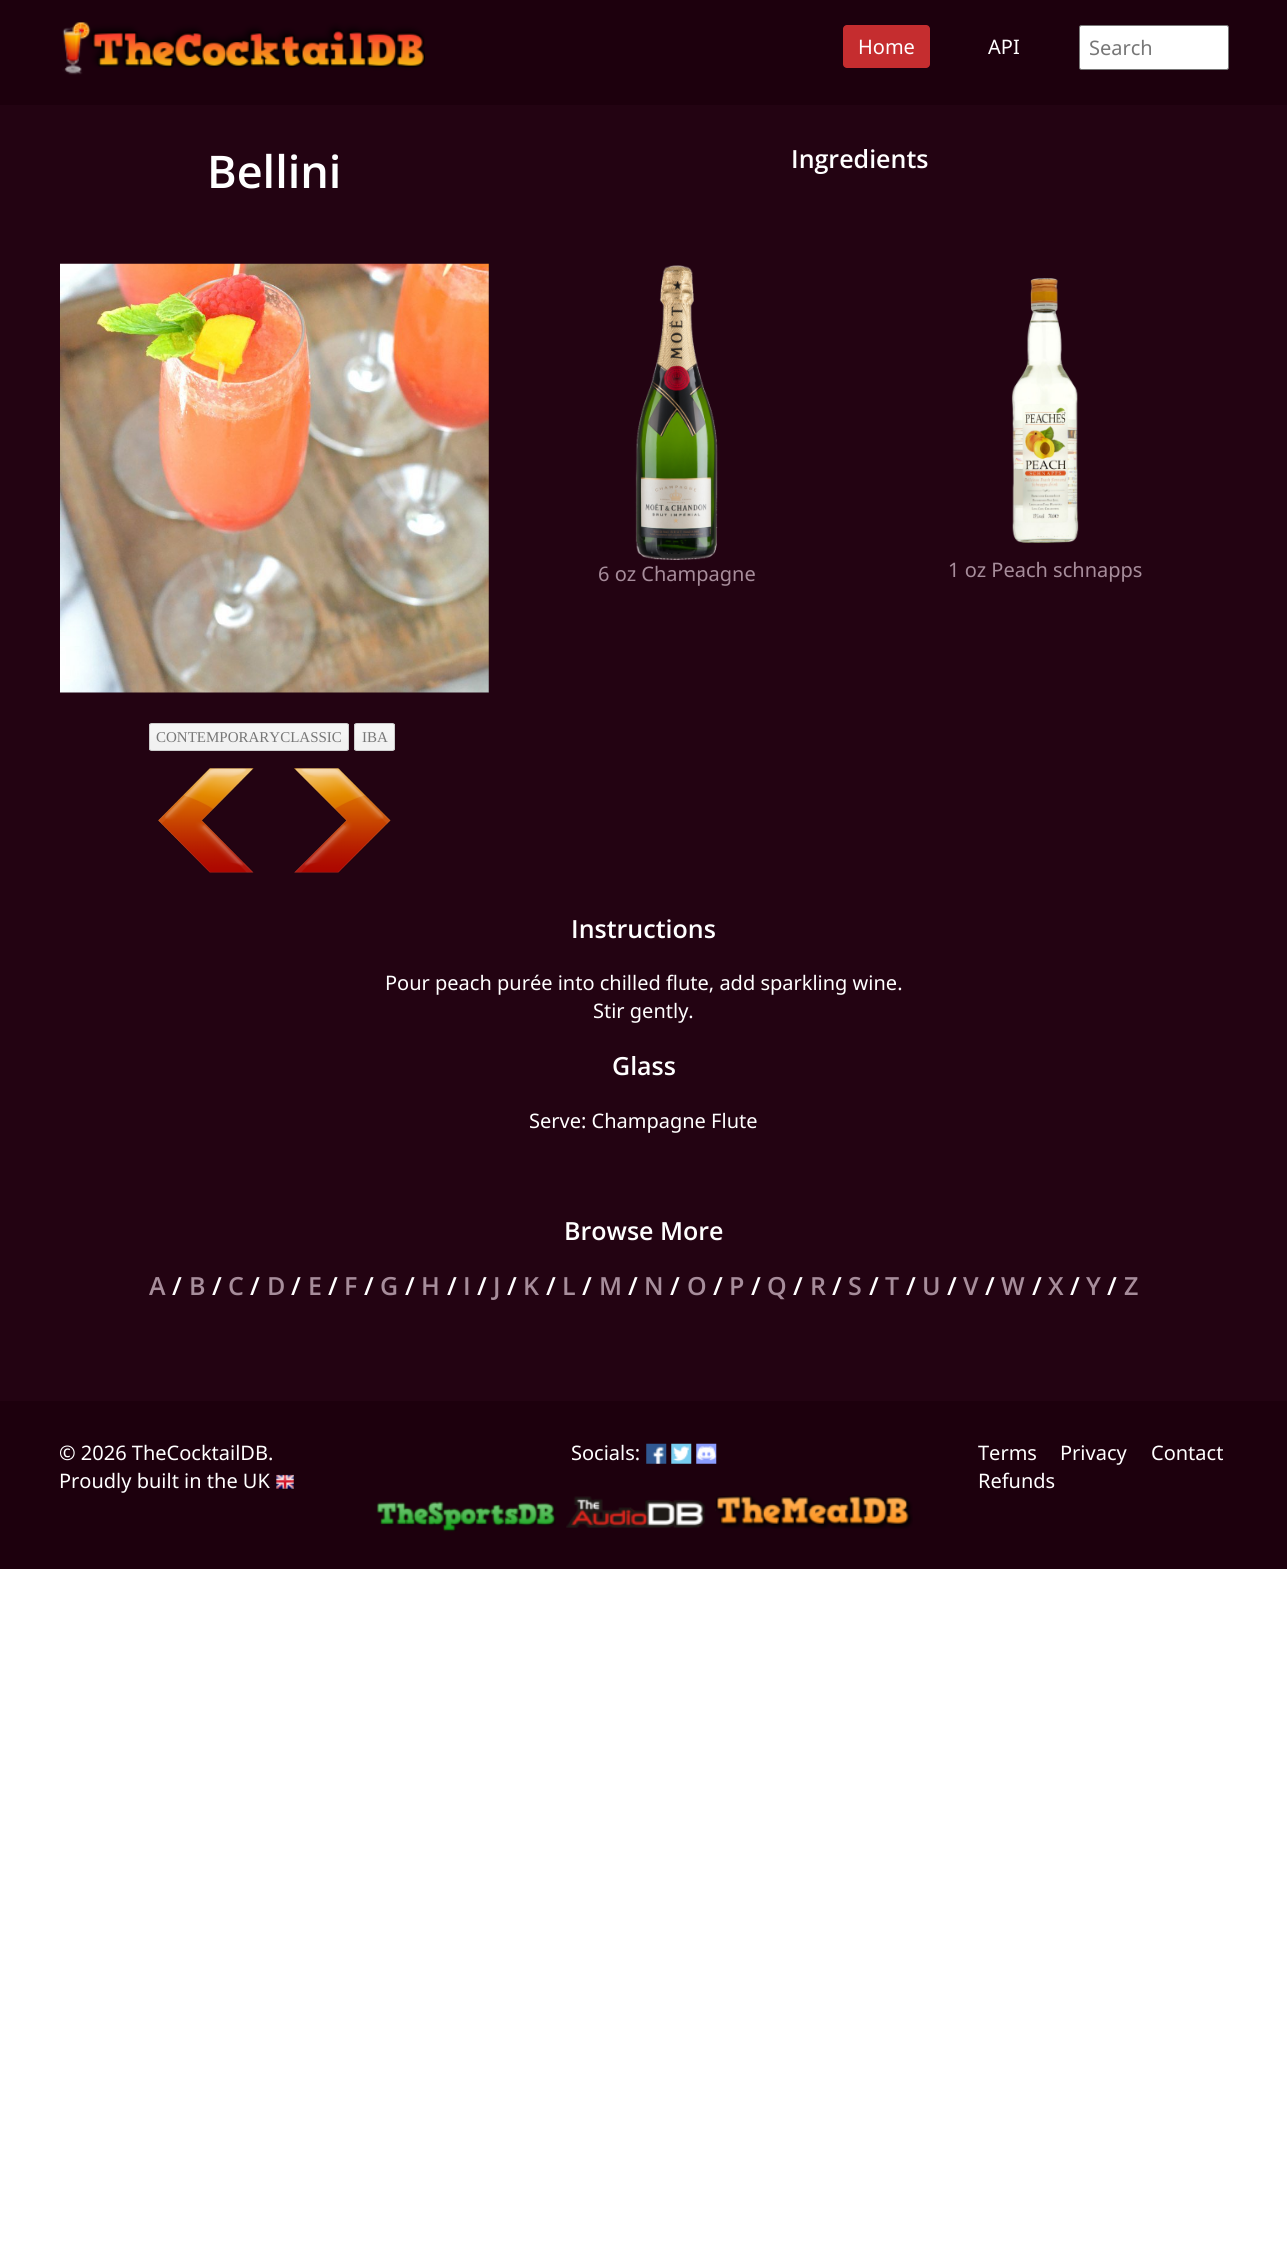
#include <cairo.h>
#include <math.h>
#include <stddef.h>


static void set_color(cairo_t *cr, unsigned color) {
    cairo_set_source_rgb(cr, (color >> 16) / 255.0, (color >> 8 & 255) / 255.0, (color & 255) / 255.0);
}

static void draw_text(cairo_t *cr, double x, double y, const char *s, const char *family, double size, int italic, int bold, unsigned color) {
    cairo_select_font_face(cr, family, italic ? CAIRO_FONT_SLANT_ITALIC : CAIRO_FONT_SLANT_NORMAL,
        bold ? CAIRO_FONT_WEIGHT_BOLD : CAIRO_FONT_WEIGHT_NORMAL);
    cairo_set_font_size(cr, size);
    set_color(cr, color);
    cairo_move_to(cr, x, y);
    cairo_show_text(cr, s);
}

static void fill_rect(cairo_t *cr, double x, double y, double w, double h, unsigned color) {
    set_color(cr, color);
    cairo_rectangle(cr, x, y, w, h);
    cairo_fill(cr);
}

static void rounded_rect(cairo_t *cr, double x, double y, double w, double h, double r) {
    cairo_new_sub_path(cr);
    cairo_arc(cr, x + w - r, y + h - r, r, 0, M_PI / 2);
    cairo_arc(cr, x + r, y + h - r, r, M_PI / 2, M_PI);
    cairo_arc(cr, x + r, y + r, r, M_PI, 1.5 * M_PI);
    cairo_arc(cr, x + w - r, y + r, r, 1.5 * M_PI, 2 * M_PI);
    cairo_close_path(cr);
}

static void draw_image(cairo_t *cr, const char *path, double x, double y, double w, double h) {
    cairo_surface_t *image = cairo_image_surface_create_from_png(path);
    cairo_save(cr);
    cairo_set_source_surface(cr, image, x, y);
    cairo_rectangle(cr, x, y, w, h);
    cairo_fill(cr);
    cairo_restore(cr);
    cairo_surface_destroy(image);
}

int main(void) {
    cairo_surface_t *surface = cairo_image_surface_create(CAIRO_FORMAT_RGB24, 1287, 2262);
    cairo_t *cr = cairo_create(surface);
    cairo_font_options_t *options = cairo_font_options_create();
    cairo_font_options_set_hint_metrics(options, CAIRO_HINT_METRICS_OFF);
    cairo_font_options_set_hint_style(options, CAIRO_HINT_STYLE_NONE);
    cairo_set_font_options(cr, options);
    cairo_set_miter_limit(cr, 4);
    cairo_pattern_t *gradient;
    set_color(cr, 0xFFFFFF);
    cairo_paint(cr);
    fill_rect(cr, 0, 0, 1287, 105, 0x1D000D);
    draw_image(cr, "assets/img1.png", 62, 22, 363, 53);
    set_color(cr, 0xC52D2F);
    rounded_rect(cr, 843, 25, 87, 43, 4);
    cairo_fill(cr);
    draw_text(cr, 858, 54, "Home", "Noto Sans", 20, 0, 0, 0xFFFFFF);
    draw_text(cr, 988, 54, "API", "Noto Sans", 20, 0, 0, 0xFFFFFF);
    rounded_rect(cr, 1079.5, 25.5, 149, 44, 2);
    cairo_fill_preserve(cr);
    set_color(cr, 0x767676);
    cairo_set_line_width(cr, 1);
    cairo_stroke(cr);
    draw_text(cr, 1089, 55, "Search", "Noto Sans", 20, 0, 0, 0x777777);
    fill_rect(cr, 0, 105, 1287, 1296, 0x230312);
    draw_text(cr, 207, 188, "Bellini", "Open Sans SemiBold", 45, 0, 0, 0xFFFFFF);
    draw_text(cr, 791, 168, "Ingredients", "Open Sans SemiBold", 25, 0, 0, 0xFFFFFF);
    draw_image(cr, "assets/img2.png", 635, 265, 83, 295);
    draw_text(cr, 598, 581, "6 oz Champagne", "Noto Sans", 20, 0, 0, 0xA78D9B);
    draw_image(cr, "assets/img3.png", 1011, 278, 68, 265);
    draw_text(cr, 948, 577, "1 oz Peach schnapps", "Noto Sans", 20, 0, 0, 0xA78D9B);
    draw_image(cr, "assets/img4.png", 60, 263, 429, 430);
    cairo_save(cr);
    rounded_rect(cr, 149, 723, 200, 28, 2.5);
    cairo_clip(cr);
    gradient = cairo_pattern_create_linear(150, 734, 150, 742);
    cairo_pattern_add_color_stop_rgba(gradient, 0, 0.961, 0.961, 0.961, 1);
    cairo_pattern_add_color_stop_rgba(gradient, 1, 0.945, 0.945, 0.945, 1);
    cairo_set_source(cr, gradient);
    cairo_pattern_destroy(gradient);
    cairo_rectangle(cr, 149, 724, 200, 26);
    cairo_fill(cr);
    cairo_restore(cr);
    rounded_rect(cr, 149.5, 723.5, 199, 27, 2);
    set_color(cr, 0xCCCCCC);
    cairo_stroke(cr);
    draw_text(cr, 156, 742, "CONTEMPORARYCLASSIC", "Liberation Serif", 15, 0, 0, 0x777777);
    cairo_save(cr);
    rounded_rect(cr, 354, 723, 41, 28, 2.5);
    cairo_clip(cr);
    gradient = cairo_pattern_create_linear(355, 734, 355, 742);
    cairo_pattern_add_color_stop_rgba(gradient, 0, 0.961, 0.961, 0.961, 1);
    cairo_pattern_add_color_stop_rgba(gradient, 1, 0.945, 0.945, 0.945, 1);
    cairo_set_source(cr, gradient);
    cairo_pattern_destroy(gradient);
    cairo_rectangle(cr, 354, 724, 41, 26);
    cairo_fill(cr);
    cairo_restore(cr);
    rounded_rect(cr, 354.5, 723.5, 40, 27, 2);
    set_color(cr, 0xCCCCCC);
    cairo_stroke(cr);
    draw_text(cr, 362, 742, "IBA", "Liberation Serif", 15, 0, 0, 0x777777);
    draw_image(cr, "assets/img5.png", 158, 768, 96, 105);
    draw_image(cr, "assets/img6.png", 294, 768, 97, 105);
    draw_text(cr, 571, 938, "Instructions", "Open Sans SemiBold", 25, 0, 0, 0xFFFFFF);
    draw_text(cr, 385, 990, "Pour peach purée into chilled flute, add sparkling wine.", "Noto Sans", 20, 0, 0, 0xFFFFFF);
    draw_text(cr, 593, 1018, "Stir gently.", "Noto Sans", 20, 0, 0, 0xFFFFFF);
    draw_text(cr, 612, 1075, "Glass", "Open Sans SemiBold", 25, 0, 0, 0xFFFFFF);
    draw_text(cr, 529, 1128, "Serve: Champagne Flute", "Noto Sans", 20, 0, 0, 0xFFFFFF);
    draw_text(cr, 564, 1240, "Browse More", "Open Sans SemiBold", 25, 0, 0, 0xFFFFFF);
    draw_text(cr, 149, 1295, "A", "Open Sans SemiBold", 25, 0, 0, 0xA78D9B);
    draw_text(cr, 172, 1295, "/", "Open Sans SemiBold", 25, 0, 0, 0xFFFFFF);
    draw_text(cr, 189, 1295, "B", "Open Sans SemiBold", 25, 0, 0, 0xA78D9B);
    draw_text(cr, 212, 1295, "/", "Open Sans SemiBold", 25, 0, 0, 0xFFFFFF);
    draw_text(cr, 228, 1295, "C", "Open Sans SemiBold", 25, 0, 0, 0xA78D9B);
    draw_text(cr, 250, 1295, "/", "Open Sans SemiBold", 25, 0, 0, 0xFFFFFF);
    draw_text(cr, 267, 1295, "D", "Open Sans SemiBold", 25, 0, 0, 0xA78D9B);
    draw_text(cr, 291, 1295, "/", "Open Sans SemiBold", 25, 0, 0, 0xFFFFFF);
    draw_text(cr, 308, 1295, "E", "Open Sans SemiBold", 25, 0, 0, 0xA78D9B);
    draw_text(cr, 328, 1295, "/", "Open Sans SemiBold", 25, 0, 0, 0xFFFFFF);
    draw_text(cr, 344, 1295, "F", "Open Sans SemiBold", 25, 0, 0, 0xA78D9B);
    draw_text(cr, 364, 1295, "/", "Open Sans SemiBold", 25, 0, 0, 0xFFFFFF);
    draw_text(cr, 380, 1295, "G", "Open Sans SemiBold", 25, 0, 0, 0xA78D9B);
    draw_text(cr, 405, 1295, "/", "Open Sans SemiBold", 25, 0, 0, 0xFFFFFF);
    draw_text(cr, 421, 1295, "H", "Open Sans SemiBold", 25, 0, 0, 0xA78D9B);
    draw_text(cr, 447, 1295, "/", "Open Sans SemiBold", 25, 0, 0, 0xFFFFFF);
    draw_text(cr, 463, 1295, "I", "Open Sans SemiBold", 25, 0, 0, 0xA78D9B);
    draw_text(cr, 477, 1295, "/", "Open Sans SemiBold", 25, 0, 0, 0xFFFFFF);
    draw_text(cr, 493, 1295, "J", "Open Sans SemiBold", 25, 0, 0, 0xA78D9B);
    draw_text(cr, 507, 1295, "/", "Open Sans SemiBold", 25, 0, 0, 0xFFFFFF);
    draw_text(cr, 523, 1295, "K", "Open Sans SemiBold", 25, 0, 0, 0xA78D9B);
    draw_text(cr, 546, 1295, "/", "Open Sans SemiBold", 25, 0, 0, 0xFFFFFF);
    draw_text(cr, 562, 1295, "L", "Open Sans SemiBold", 25, 0, 0, 0xA78D9B);
    draw_text(cr, 582, 1295, "/", "Open Sans SemiBold", 25, 0, 0, 0xFFFFFF);
    draw_text(cr, 599, 1295, "M", "Open Sans SemiBold", 25, 0, 0, 0xA78D9B);
    draw_text(cr, 628, 1295, "/", "Open Sans SemiBold", 25, 0, 0, 0xFFFFFF);
    draw_text(cr, 644, 1295, "N", "Open Sans SemiBold", 25, 0, 0, 0xA78D9B);
    draw_text(cr, 670, 1295, "/", "Open Sans SemiBold", 25, 0, 0, 0xFFFFFF);
    draw_text(cr, 687, 1295, "O", "Open Sans SemiBold", 25, 0, 0, 0xA78D9B);
    draw_text(cr, 713, 1295, "/", "Open Sans SemiBold", 25, 0, 0, 0xFFFFFF);
    draw_text(cr, 729, 1295, "P", "Open Sans SemiBold", 25, 0, 0, 0xA78D9B);
    draw_text(cr, 751, 1295, "/", "Open Sans SemiBold", 25, 0, 0, 0xFFFFFF);
    draw_text(cr, 767, 1295, "Q", "Open Sans SemiBold", 25, 0, 0, 0xA78D9B);
    draw_text(cr, 793, 1295, "/", "Open Sans SemiBold", 25, 0, 0, 0xFFFFFF);
    draw_text(cr, 810, 1295, "R", "Open Sans SemiBold", 25, 0, 0, 0xA78D9B);
    draw_text(cr, 832, 1295, "/", "Open Sans SemiBold", 25, 0, 0, 0xFFFFFF);
    draw_text(cr, 848, 1295, "S", "Open Sans SemiBold", 25, 0, 0, 0xA78D9B);
    draw_text(cr, 869, 1295, "/", "Open Sans SemiBold", 25, 0, 0, 0xFFFFFF);
    draw_text(cr, 885, 1295, "T", "Open Sans SemiBold", 25, 0, 0, 0xA78D9B);
    draw_text(cr, 906, 1295, "/", "Open Sans SemiBold", 25, 0, 0, 0xFFFFFF);
    draw_text(cr, 922, 1295, "U", "Open Sans SemiBold", 25, 0, 0, 0xA78D9B);
    draw_text(cr, 947, 1295, "/", "Open Sans SemiBold", 25, 0, 0, 0xFFFFFF);
    draw_text(cr, 963, 1295, "V", "Open Sans SemiBold", 25, 0, 0, 0xA78D9B);
    draw_text(cr, 985, 1295, "/", "Open Sans SemiBold", 25, 0, 0, 0xFFFFFF);
    draw_text(cr, 1001, 1295, "W", "Open Sans SemiBold", 25, 0, 0, 0xA78D9B);
    draw_text(cr, 1032, 1295, "/", "Open Sans SemiBold", 25, 0, 0, 0xFFFFFF);
    draw_text(cr, 1048, 1295, "X", "Open Sans SemiBold", 25, 0, 0, 0xA78D9B);
    draw_text(cr, 1070, 1295, "/", "Open Sans SemiBold", 25, 0, 0, 0xFFFFFF);
    draw_text(cr, 1086, 1295, "Y", "Open Sans SemiBold", 25, 0, 0, 0xA78D9B);
    draw_text(cr, 1107, 1295, "/", "Open Sans SemiBold", 25, 0, 0, 0xFFFFFF);
    draw_text(cr, 1124, 1295, "Z", "Open Sans SemiBold", 25, 0, 0, 0xA78D9B);
    fill_rect(cr, 0, 1401, 1287, 168, 0x1D000D);
    draw_text(cr, 59, 1460, "© 2026 TheCocktailDB.", "Noto Sans", 20, 0, 0, 0xFFFFFF);
    draw_text(cr, 59, 1488, "Proudly built in the UK", "Noto Sans", 20, 0, 0, 0xFFFFFF);
    draw_image(cr, "assets/img7.png", 276, 1474, 18, 16);
    draw_text(cr, 571, 1460, "Socials:", "Noto Sans", 20, 0, 0, 0xFFFFFF);
    draw_image(cr, "assets/img8.png", 646, 1443, 21, 21);
    draw_image(cr, "assets/img9.png", 671, 1443, 21, 21);
    draw_image(cr, "assets/img10.png", 696, 1443, 21, 21);
    draw_image(cr, "assets/img11.png", 376, 1501, 180, 31);
    draw_image(cr, "assets/img12.png", 566, 1496, 139, 32);
    draw_image(cr, "assets/img13.png", 715, 1495, 198, 34);
    draw_text(cr, 978, 1460, "Terms", "Noto Sans", 20, 0, 0, 0xFFFFFF);
    draw_text(cr, 1060, 1460, "Privacy", "Noto Sans", 20, 0, 0, 0xFFFFFF);
    draw_text(cr, 1151, 1460, "Contact", "Noto Sans", 20, 0, 0, 0xFFFFFF);
    draw_text(cr, 978, 1488, "Refunds", "Noto Sans", 20, 0, 0, 0xFFFFFF);
    cairo_surface_write_to_png(surface, "output.png");
    cairo_font_options_destroy(options);
    cairo_destroy(cr);
    cairo_surface_destroy(surface);
    return 0;
}
